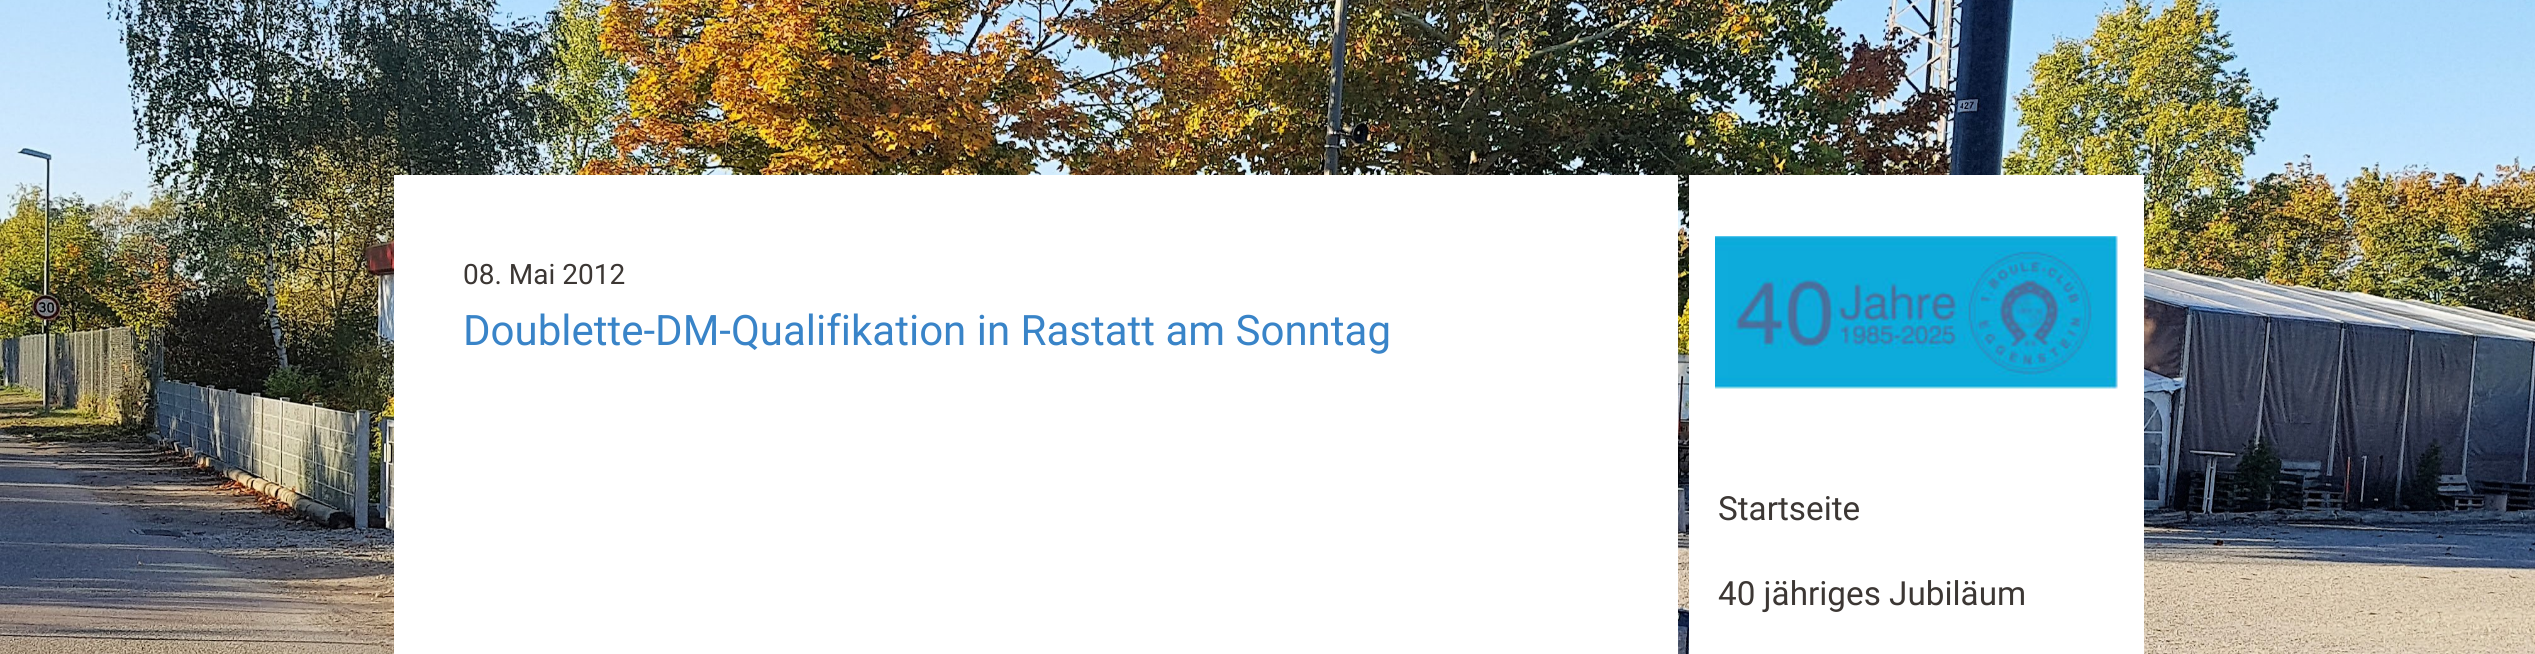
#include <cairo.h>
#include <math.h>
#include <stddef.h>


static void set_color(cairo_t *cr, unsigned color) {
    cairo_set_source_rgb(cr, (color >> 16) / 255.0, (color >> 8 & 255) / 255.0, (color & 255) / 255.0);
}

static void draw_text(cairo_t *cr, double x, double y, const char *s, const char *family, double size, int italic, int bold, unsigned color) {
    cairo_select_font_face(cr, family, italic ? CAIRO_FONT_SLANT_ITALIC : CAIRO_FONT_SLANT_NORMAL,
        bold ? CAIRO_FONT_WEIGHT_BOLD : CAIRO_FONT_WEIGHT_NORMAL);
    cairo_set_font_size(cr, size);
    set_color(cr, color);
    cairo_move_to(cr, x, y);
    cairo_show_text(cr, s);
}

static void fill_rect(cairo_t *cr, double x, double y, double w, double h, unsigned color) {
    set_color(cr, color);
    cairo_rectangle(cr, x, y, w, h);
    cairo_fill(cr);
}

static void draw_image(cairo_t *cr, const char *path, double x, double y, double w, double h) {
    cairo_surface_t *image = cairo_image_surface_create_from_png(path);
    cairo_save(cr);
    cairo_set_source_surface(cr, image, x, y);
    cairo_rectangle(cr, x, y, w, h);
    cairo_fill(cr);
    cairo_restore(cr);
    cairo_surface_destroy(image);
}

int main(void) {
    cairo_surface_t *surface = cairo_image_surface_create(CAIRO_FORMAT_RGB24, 2535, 654);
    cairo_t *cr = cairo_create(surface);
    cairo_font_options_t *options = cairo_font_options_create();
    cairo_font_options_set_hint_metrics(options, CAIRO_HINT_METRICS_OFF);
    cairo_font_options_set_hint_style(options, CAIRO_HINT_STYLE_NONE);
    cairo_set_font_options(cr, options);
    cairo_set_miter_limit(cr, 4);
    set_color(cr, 0xFFFFFF);
    cairo_paint(cr);
    draw_image(cr, "assets/img1.png", 0, 0, 2535, 654);
    fill_rect(cr, 394, 175, 1284, 479, 0xFFFFFF);
    draw_text(cr, 463, 284, "08. Mai 2012", "Roboto", 28, 0, 0, 0x3C3734);
    draw_text(cr, 463, 345, "Doublette-DM-Qualifikation in Rastatt am Sonntag", "Roboto", 42, 0, 0, 0x3984C8);
    fill_rect(cr, 1689, 175, 455, 479, 0xFFFFFF);
    draw_image(cr, "assets/img2.png", 1715, 236, 403, 153);
    draw_text(cr, 1718, 520, "Startseite", "Roboto", 33.25, 0, 0, 0x3C3734);
    draw_text(cr, 1718, 605, "40 jähriges Jubiläum", "Roboto", 33.25, 0, 0, 0x3C3734);
    cairo_surface_write_to_png(surface, "output.png");
    cairo_font_options_destroy(options);
    cairo_destroy(cr);
    cairo_surface_destroy(surface);
    return 0;
}
